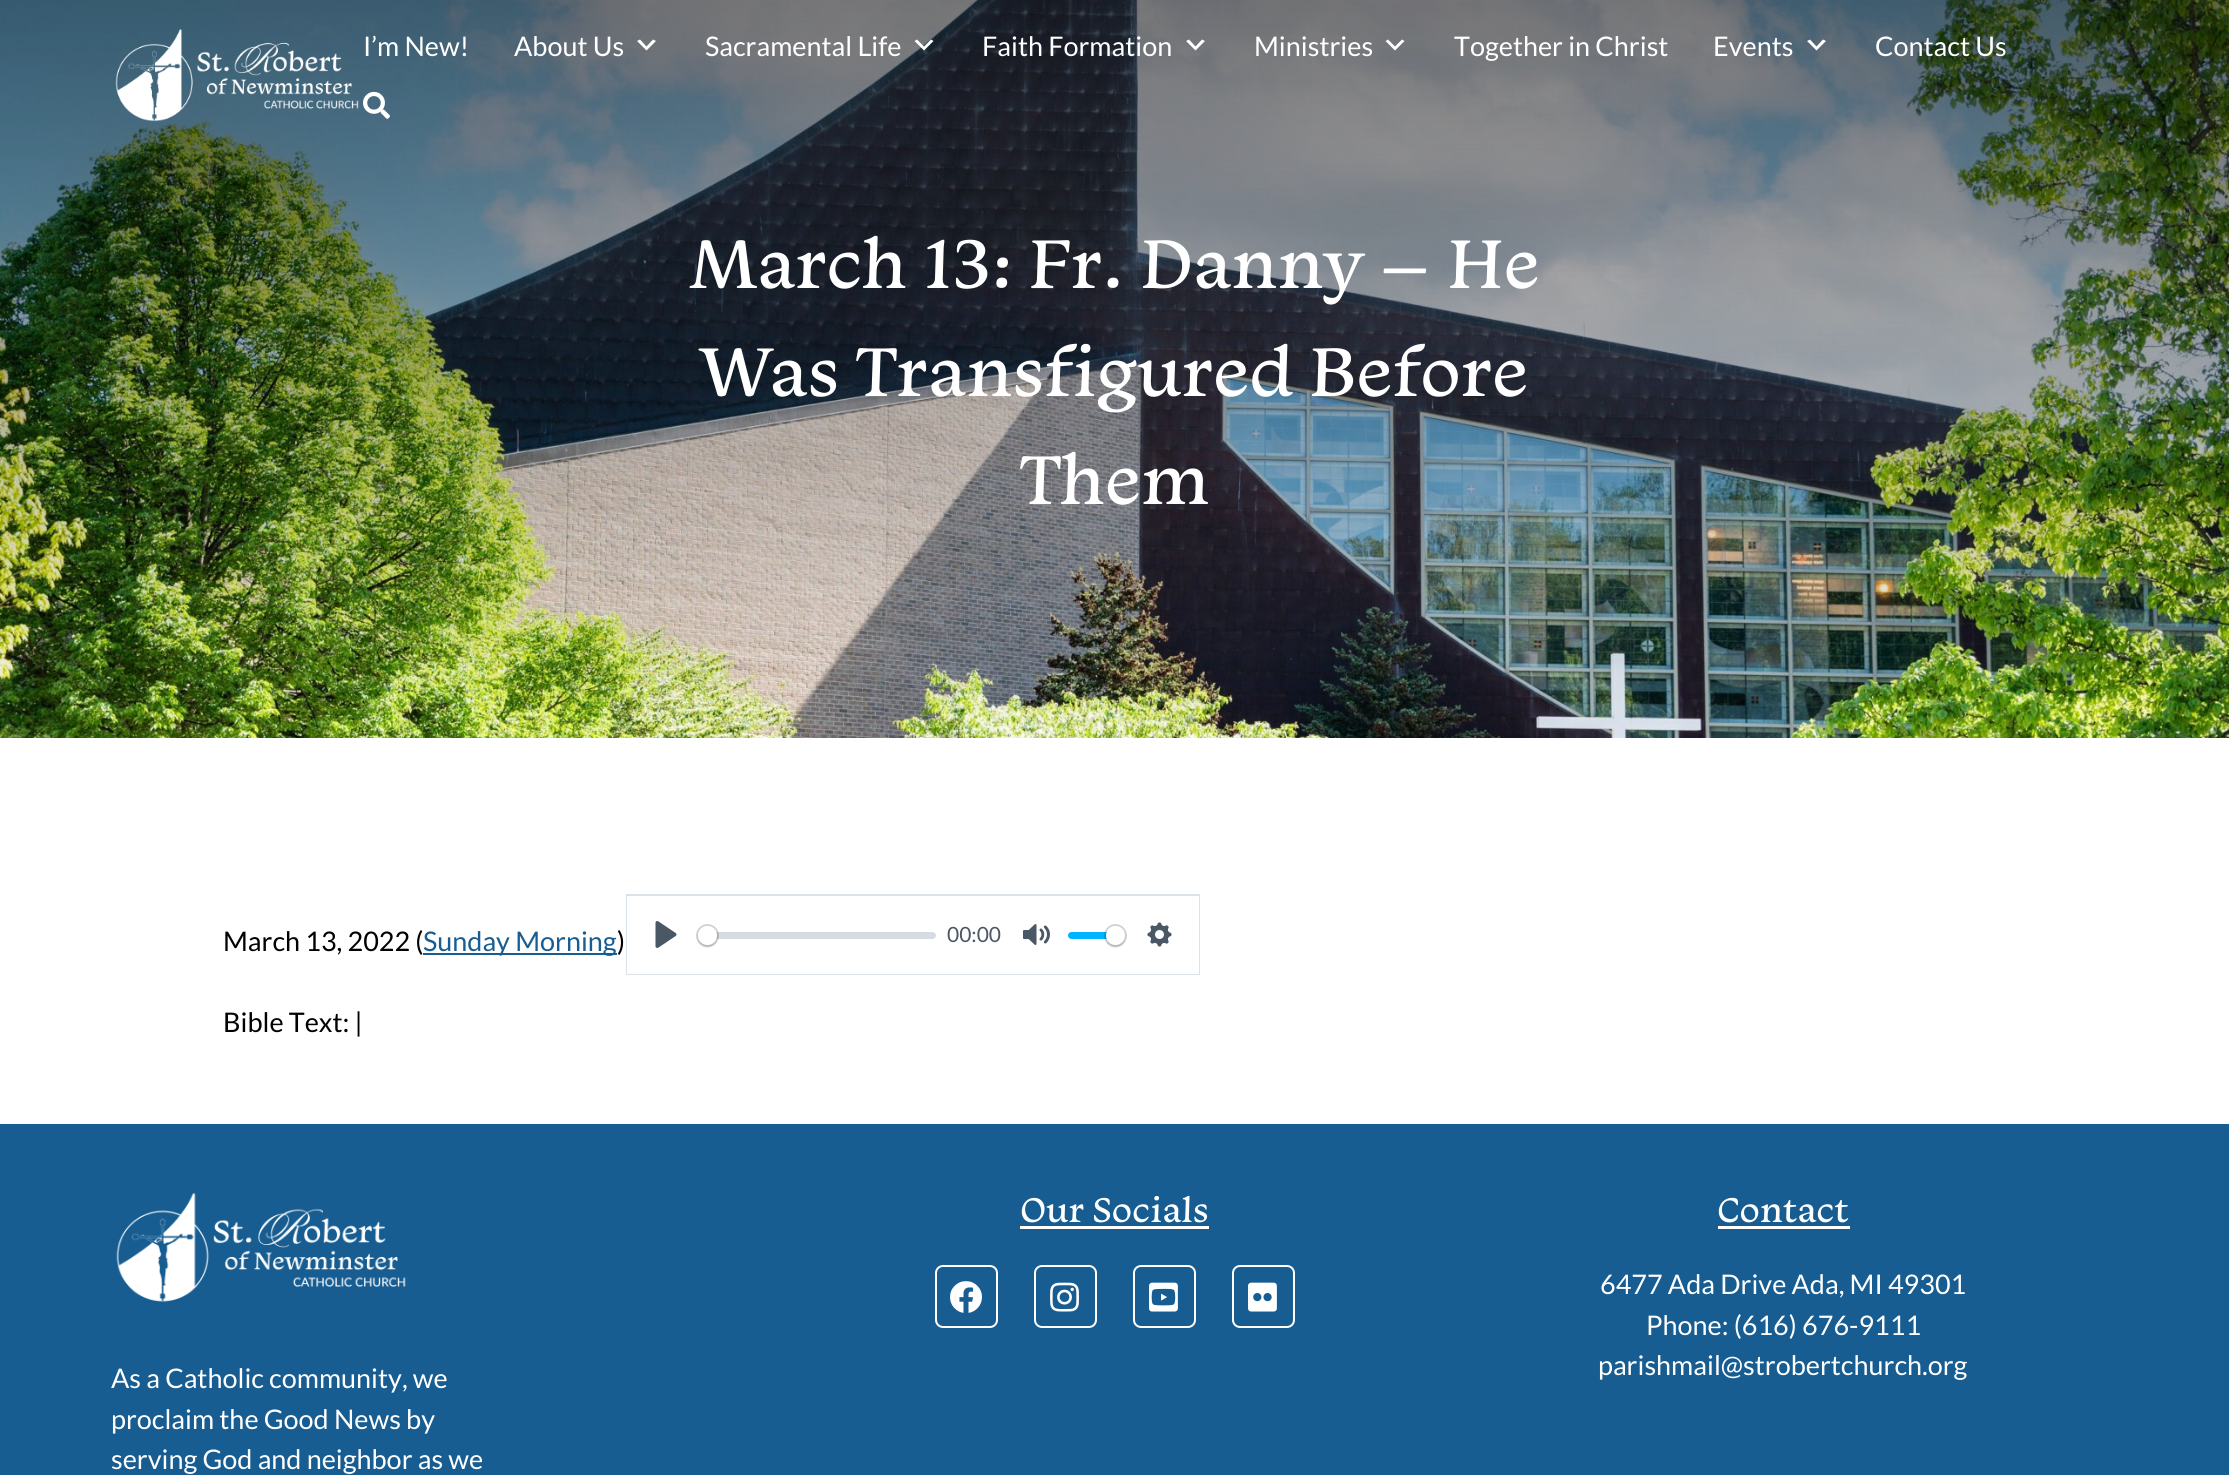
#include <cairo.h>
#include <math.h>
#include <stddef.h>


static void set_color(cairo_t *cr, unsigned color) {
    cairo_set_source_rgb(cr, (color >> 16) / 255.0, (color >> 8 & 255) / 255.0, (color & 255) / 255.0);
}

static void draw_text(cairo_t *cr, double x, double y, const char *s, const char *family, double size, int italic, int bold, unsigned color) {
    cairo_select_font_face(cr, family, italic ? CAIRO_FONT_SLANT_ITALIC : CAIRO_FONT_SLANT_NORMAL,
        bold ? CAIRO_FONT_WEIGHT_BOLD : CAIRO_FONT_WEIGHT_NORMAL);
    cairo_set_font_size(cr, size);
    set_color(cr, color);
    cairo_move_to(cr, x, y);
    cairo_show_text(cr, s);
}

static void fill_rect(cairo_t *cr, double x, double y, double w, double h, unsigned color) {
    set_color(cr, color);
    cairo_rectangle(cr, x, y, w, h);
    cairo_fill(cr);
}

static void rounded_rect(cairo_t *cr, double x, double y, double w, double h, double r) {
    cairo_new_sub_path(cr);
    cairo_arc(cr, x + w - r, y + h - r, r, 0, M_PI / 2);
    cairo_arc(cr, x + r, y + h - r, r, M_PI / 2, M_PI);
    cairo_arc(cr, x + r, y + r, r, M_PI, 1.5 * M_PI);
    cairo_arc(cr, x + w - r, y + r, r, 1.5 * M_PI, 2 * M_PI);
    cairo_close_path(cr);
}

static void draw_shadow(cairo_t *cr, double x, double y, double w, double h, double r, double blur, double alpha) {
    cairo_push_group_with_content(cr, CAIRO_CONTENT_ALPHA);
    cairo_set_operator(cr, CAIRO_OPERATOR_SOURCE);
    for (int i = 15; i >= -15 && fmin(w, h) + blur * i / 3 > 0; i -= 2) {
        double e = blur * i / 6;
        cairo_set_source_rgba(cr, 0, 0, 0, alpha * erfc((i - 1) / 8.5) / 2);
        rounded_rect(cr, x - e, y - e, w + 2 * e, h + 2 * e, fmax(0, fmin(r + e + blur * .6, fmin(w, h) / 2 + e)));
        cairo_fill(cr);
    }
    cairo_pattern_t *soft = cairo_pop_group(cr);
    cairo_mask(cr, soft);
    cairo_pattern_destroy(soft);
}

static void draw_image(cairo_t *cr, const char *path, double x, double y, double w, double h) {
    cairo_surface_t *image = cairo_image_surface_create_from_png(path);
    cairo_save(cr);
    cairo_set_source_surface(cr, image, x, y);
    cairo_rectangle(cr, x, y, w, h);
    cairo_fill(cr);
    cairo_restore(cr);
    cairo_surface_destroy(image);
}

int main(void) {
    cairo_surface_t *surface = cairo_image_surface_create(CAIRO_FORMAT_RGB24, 2229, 1475);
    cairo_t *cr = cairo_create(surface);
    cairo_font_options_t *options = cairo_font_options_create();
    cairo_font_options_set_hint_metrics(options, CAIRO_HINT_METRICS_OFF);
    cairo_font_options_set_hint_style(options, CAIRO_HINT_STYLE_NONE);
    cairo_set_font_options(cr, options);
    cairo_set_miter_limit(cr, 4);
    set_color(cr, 0xFFFFFF);
    cairo_paint(cr);
    draw_image(cr, "assets/img3.png", 0, 0, 2229, 738);
    draw_image(cr, "assets/img1.png", 115, 29, 244, 93);
    draw_text(cr, 363, 56, "I’m New!", "Lato", 27, 0, 0, 0xFFFFFF);
    draw_text(cr, 514, 56, "About Us", "Lato", 27, 0, 0, 0xFFFFFF);
    cairo_new_path(cr);
    cairo_move_to(cr, 640, 39.5);
    cairo_line_to(cr, 646.5, 46.5);
    cairo_line_to(cr, 653, 39.5);
    cairo_line_to(cr, 656, 41);
    cairo_line_to(cr, 646.5, 50.5);
    cairo_line_to(cr, 637, 41);
    cairo_close_path(cr);
    cairo_fill(cr);
    draw_text(cr, 705, 56, "Sacramental Life", "Lato", 27, 0, 0, 0xFFFFFF);
    cairo_new_path(cr);
    cairo_move_to(cr, 917, 39.5);
    cairo_line_to(cr, 924, 46.5);
    cairo_line_to(cr, 931, 39.5);
    cairo_line_to(cr, 933.5, 41);
    cairo_line_to(cr, 924, 50.5);
    cairo_line_to(cr, 914.5, 41);
    cairo_close_path(cr);
    cairo_fill(cr);
    draw_text(cr, 982, 56, "Faith Formation", "Lato", 27, 0, 0, 0xFFFFFF);
    cairo_new_path(cr);
    cairo_move_to(cr, 1189, 39.5);
    cairo_line_to(cr, 1195.5, 46.5);
    cairo_line_to(cr, 1202, 39.5);
    cairo_line_to(cr, 1205, 41);
    cairo_line_to(cr, 1195.5, 50.5);
    cairo_line_to(cr, 1186, 41);
    cairo_close_path(cr);
    cairo_fill(cr);
    draw_text(cr, 1254, 56, "Ministries", "Lato", 27, 0, 0, 0xFFFFFF);
    cairo_new_path(cr);
    cairo_move_to(cr, 1388, 39.5);
    cairo_line_to(cr, 1395, 46.5);
    cairo_line_to(cr, 1402, 39.5);
    cairo_line_to(cr, 1404.5, 41);
    cairo_line_to(cr, 1395, 50.5);
    cairo_line_to(cr, 1385.5, 41);
    cairo_close_path(cr);
    cairo_fill(cr);
    draw_text(cr, 1454, 56, "Together in Christ", "Lato", 27, 0, 0, 0xFFFFFF);
    draw_text(cr, 1713, 56, "Events", "Lato", 27, 0, 0, 0xFFFFFF);
    cairo_new_path(cr);
    cairo_move_to(cr, 1810, 39.5);
    cairo_line_to(cr, 1816.5, 46.5);
    cairo_line_to(cr, 1823, 39.5);
    cairo_line_to(cr, 1826, 41);
    cairo_line_to(cr, 1816.5, 50.5);
    cairo_line_to(cr, 1807, 41);
    cairo_close_path(cr);
    cairo_fill(cr);
    draw_text(cr, 1875, 56, "Contact Us", "Lato", 27, 0, 0, 0xFFFFFF);
    draw_image(cr, "assets/img2.png", 363, 91, 27, 28);
    draw_text(cr, 690, 288, "March 13: Fr. Danny – He", "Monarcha", 72, 0, 0, 0xFFFFFF);
    draw_text(cr, 701, 396, "Was Transfigured Before", "Monarcha", 72, 0, 0, 0xFFFFFF);
    draw_text(cr, 1020, 504, "Them", "Monarcha", 72, 0, 0, 0xFFFFFF);
    draw_text(cr, 223, 951, "March 13, 2022 (", "Lato", 27, 0, 0, 0x000000);
    fill_rect(cr, 423, 953, 194, 2, 0x175D91);
    draw_text(cr, 423, 951, "Sunday Morning", "Lato", 27, 0, 0, 0x175D91);
    draw_text(cr, 617, 951, ")", "Lato", 27, 0, 0, 0x000000);
    draw_text(cr, 223, 1032, "Bible Text: |", "Lato", 27, 0, 0, 0x000000);
    cairo_rectangle(cr, 627, 895, 572, 79);
    set_color(cr, 0xDBE3E8);
    cairo_stroke(cr);
    fill_rect(cr, 627, 896, 572, 78, 0xFFFFFF);
    draw_image(cr, "assets/img4.png", 655, 921, 22, 27);
    cairo_set_source_rgba(cr, 0.757, 0.788, 0.82, 0.66);
    rounded_rect(cr, 698, 932, 238, 7, 3.5);
    cairo_fill(cr);
    cairo_arc(cr, 707.5, 935.5, 10.5, 0, 2 * M_PI);
    cairo_set_source_rgba(cr, 0.137, 0.161, 0.184, 0.2);
    cairo_stroke(cr);
    set_color(cr, 0x000000);
    draw_shadow(cr, 698, 927, 19, 20, 9.5, 1, 0.15);
    set_color(cr, 0xFFFFFF);
    cairo_arc(cr, 707.5, 935.5, 9.5, 0, 2 * M_PI);
    cairo_fill(cr);
    draw_text(cr, 947, 942, "00:00", "Lato", 21, 0, 0, 0x4A5764);
    draw_image(cr, "assets/img5.png", 1023, 924, 27, 21);
    set_color(cr, 0x00B3FF);
    rounded_rect(cr, 1068, 932, 57, 7, 3.5);
    cairo_fill(cr);
    cairo_arc(cr, 1115.5, 935.5, 10.5, 0, 2 * M_PI);
    cairo_set_source_rgba(cr, 0.137, 0.161, 0.184, 0.2);
    cairo_stroke(cr);
    set_color(cr, 0x000000);
    draw_shadow(cr, 1106, 927, 19, 20, 9.5, 1, 0.15);
    set_color(cr, 0xFFFFFF);
    cairo_arc(cr, 1115.5, 935.5, 9.5, 0, 2 * M_PI);
    cairo_fill(cr);
    draw_image(cr, "assets/img6.png", 1147, 922, 25, 25);
    fill_rect(cr, 0, 1124, 2229, 351, 0x175D91);
    draw_text(cr, 1020, 1222, "Our Socials", "Monarcha", 36, 0, 0, 0xFFFFFF);
    fill_rect(cr, 1020, 1226, 189, 3, 0xFFFFFF);
    rounded_rect(cr, 936, 1266, 61, 61, 7);
    cairo_stroke(cr);
    draw_image(cr, "assets/img7.png", 950, 1281, 32, 32);
    rounded_rect(cr, 1035, 1266, 61, 61, 7);
    cairo_stroke(cr);
    draw_image(cr, "assets/img8.png", 1050, 1282, 29, 30);
    rounded_rect(cr, 1134, 1266, 61, 61, 7);
    cairo_stroke(cr);
    draw_image(cr, "assets/img9.png", 1149, 1282, 29, 30);
    rounded_rect(cr, 1233, 1266, 61, 61, 7);
    cairo_stroke(cr);
    draw_image(cr, "assets/img10.png", 1248, 1282, 29, 30);
    draw_text(cr, 1717, 1222, "Contact", "Monarcha", 36, 0, 0, 0xFFFFFF);
    fill_rect(cr, 1718, 1226, 132, 3, 0xFFFFFF);
    draw_text(cr, 1600, 1294, "6477 Ada Drive Ada, MI 49301", "Lato", 27, 0, 0, 0xFFFFFF);
    draw_text(cr, 1646, 1335, "Phone: (616) 676-9111", "Lato", 27, 0, 0, 0xFFFFFF);
    draw_text(cr, 1598, 1375, "parishmail@strobertchurch.org", "Lato", 27, 0, 0, 0xFFFFFF);
    draw_image(cr, "assets/img11.png", 116, 1192, 290, 110);
    draw_text(cr, 111, 1388, "As a Catholic community, we", "Lato", 27, 0, 0, 0xFFFFFF);
    draw_text(cr, 111, 1429, "proclaim the Good News by", "Lato", 27, 0, 0, 0xFFFFFF);
    draw_text(cr, 111, 1469, "serving God and neighbor as we", "Lato", 27, 0, 0, 0xFFFFFF);
    cairo_surface_write_to_png(surface, "output.png");
    cairo_font_options_destroy(options);
    cairo_destroy(cr);
    cairo_surface_destroy(surface);
    return 0;
}
